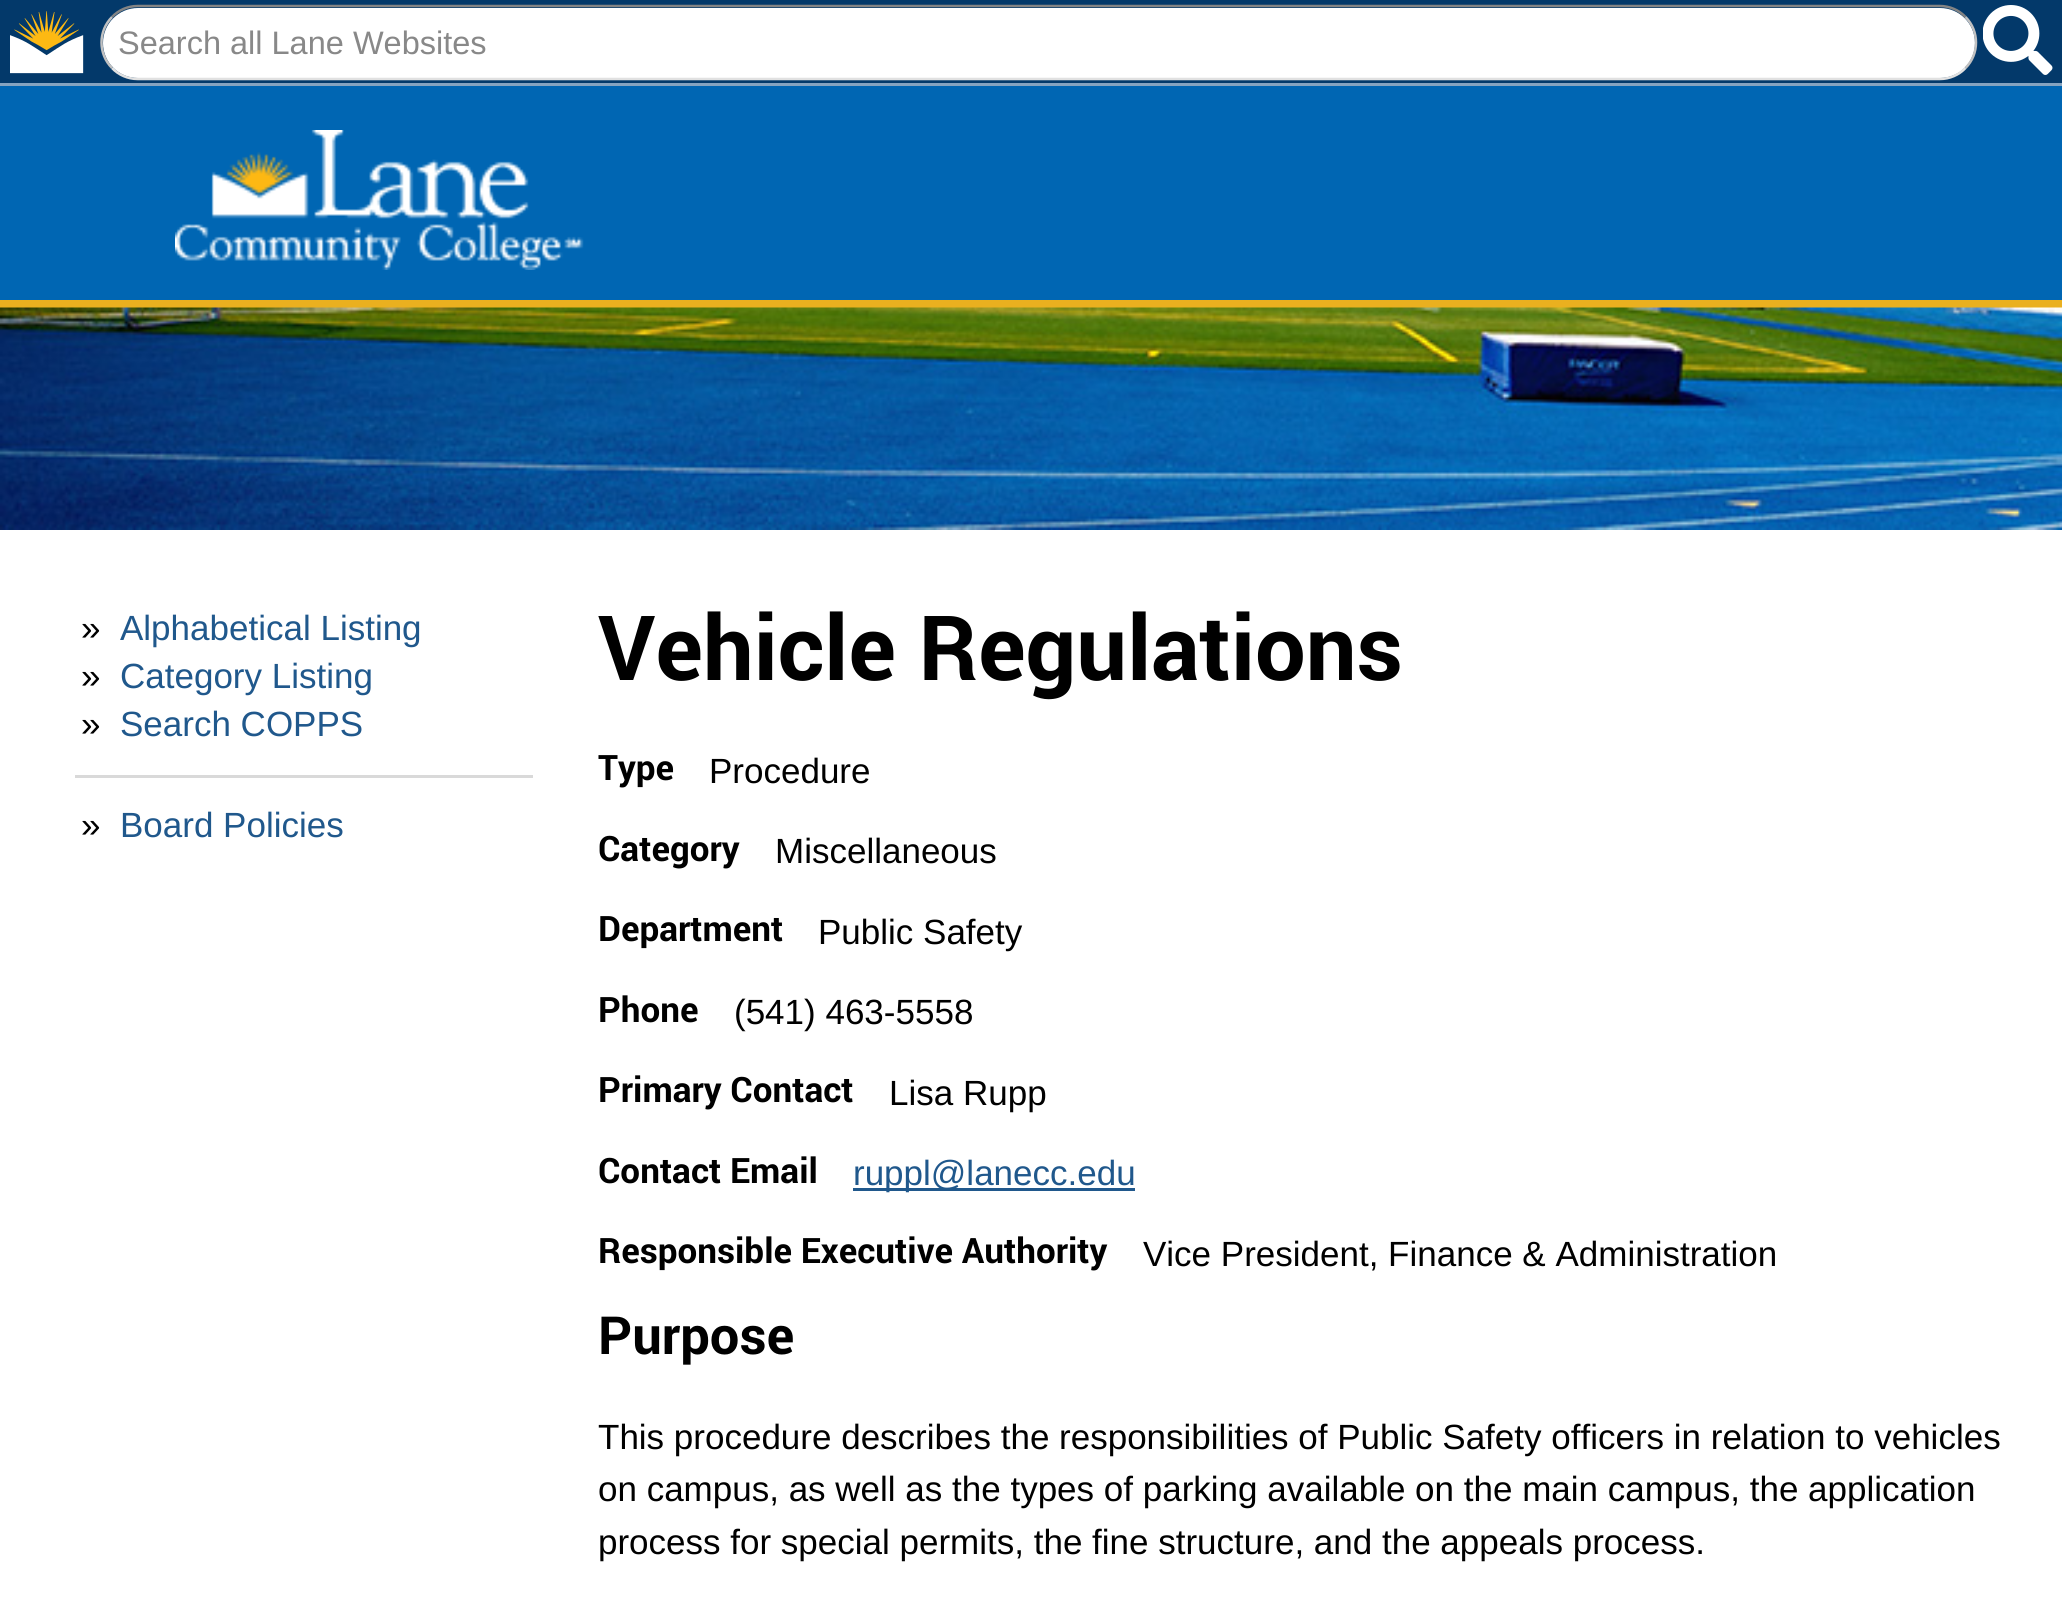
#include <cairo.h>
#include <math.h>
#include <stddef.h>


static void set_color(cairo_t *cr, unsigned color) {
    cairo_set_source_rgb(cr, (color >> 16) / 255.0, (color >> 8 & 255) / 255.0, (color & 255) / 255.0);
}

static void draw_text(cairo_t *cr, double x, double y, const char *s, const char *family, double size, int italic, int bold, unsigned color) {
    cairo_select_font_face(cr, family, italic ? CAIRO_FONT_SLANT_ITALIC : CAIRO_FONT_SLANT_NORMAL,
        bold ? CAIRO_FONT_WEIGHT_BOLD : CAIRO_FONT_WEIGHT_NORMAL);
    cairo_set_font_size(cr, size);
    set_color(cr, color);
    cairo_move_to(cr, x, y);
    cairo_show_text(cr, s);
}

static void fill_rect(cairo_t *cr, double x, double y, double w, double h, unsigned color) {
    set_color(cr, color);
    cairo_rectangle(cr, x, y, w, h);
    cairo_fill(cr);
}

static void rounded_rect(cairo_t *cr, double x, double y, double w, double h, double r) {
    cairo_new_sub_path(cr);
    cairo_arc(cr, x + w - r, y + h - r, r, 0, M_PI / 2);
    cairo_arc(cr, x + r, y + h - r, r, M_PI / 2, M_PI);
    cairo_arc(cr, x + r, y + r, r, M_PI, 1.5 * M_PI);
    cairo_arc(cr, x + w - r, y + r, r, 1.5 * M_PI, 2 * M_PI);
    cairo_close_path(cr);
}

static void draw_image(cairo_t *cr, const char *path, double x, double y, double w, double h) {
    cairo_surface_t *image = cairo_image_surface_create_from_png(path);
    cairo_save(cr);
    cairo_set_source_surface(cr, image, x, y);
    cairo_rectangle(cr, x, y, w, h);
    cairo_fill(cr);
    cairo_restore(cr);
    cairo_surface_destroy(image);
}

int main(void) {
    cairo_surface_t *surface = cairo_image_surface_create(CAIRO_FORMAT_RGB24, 2062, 1602);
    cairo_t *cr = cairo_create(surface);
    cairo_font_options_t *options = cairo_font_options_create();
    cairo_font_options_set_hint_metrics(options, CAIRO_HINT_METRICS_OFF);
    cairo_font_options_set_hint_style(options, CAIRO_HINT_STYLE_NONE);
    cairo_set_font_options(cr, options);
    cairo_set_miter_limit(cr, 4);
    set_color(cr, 0xFFFFFF);
    cairo_paint(cr);
    fill_rect(cr, 0, 0, 2062, 83, 0x03396A);
    fill_rect(cr, 0, 83, 2062, 3, 0x85A3C0);
    draw_image(cr, "assets/img1.png", 10, 11, 74, 63);
    set_color(cr, 0xFFFFFF);
    rounded_rect(cr, 103, 8, 1872, 70, 35);
    cairo_fill(cr);
    cairo_new_path(cr);
    cairo_move_to(cr, 112, 17);
    cairo_curve_to(cr, 118.5, 10, 128, 6, 137.5, 6);
    cairo_line_to(cr, 1940, 6);
    cairo_curve_to(cr, 1949.5, 6, 1959, 10, 1965.5, 17);
    set_color(cr, 0x848484);
    cairo_set_line_width(cr, 2.5);
    cairo_stroke(cr);
    cairo_new_path(cr);
    cairo_move_to(cr, 1965.5, 17);
    cairo_curve_to(cr, 1979.5, 31, 1979.5, 54, 1965.5, 68);
    set_color(cr, 0xC1C1C1);
    cairo_stroke(cr);
    cairo_new_path(cr);
    cairo_move_to(cr, 1965.5, 68);
    cairo_curve_to(cr, 1959, 75, 1949.5, 79, 1940, 79);
    cairo_line_to(cr, 137.5, 79);
    cairo_curve_to(cr, 128, 79, 118.5, 75, 112, 68);
    set_color(cr, 0xE1E1E1);
    cairo_stroke(cr);
    cairo_new_path(cr);
    cairo_move_to(cr, 112, 68);
    cairo_curve_to(cr, 98, 54, 98, 31, 112, 17);
    set_color(cr, 0xC1C1C1);
    cairo_stroke(cr);
    draw_text(cr, 118, 54, "Search all Lane Websites", "Liberation Sans", 32.5, 0, 0, 0x888888);
    draw_image(cr, "assets/img2.png", 1983, 5, 70, 70);
    fill_rect(cr, 0, 86, 2062, 214, 0x0066B3);
    fill_rect(cr, 0, 300, 2062, 8, 0xEAB01F);
    draw_image(cr, "assets/img3.png", 175, 130, 409, 140);
    draw_image(cr, "assets/img4.png", 0, 307, 2062, 223);
    draw_text(cr, 81, 640, "»", "Liberation Sans", 35, 0, 0, 0x000000);
    draw_text(cr, 120, 640, "Alphabetical Listing", "Liberation Sans", 35, 0, 0, 0x20588C);
    draw_text(cr, 81, 688, "»", "Liberation Sans", 35, 0, 0, 0x000000);
    draw_text(cr, 120, 688, "Category Listing", "Liberation Sans", 35, 0, 0, 0x20588C);
    draw_text(cr, 81, 736, "»", "Liberation Sans", 35, 0, 0, 0x000000);
    draw_text(cr, 120, 736, "Search COPPS", "Liberation Sans", 35, 0, 0, 0x20588C);
    fill_rect(cr, 75, 775, 458, 3, 0xD9D9D9);
    draw_text(cr, 81, 837, "»", "Liberation Sans", 35, 0, 0, 0x000000);
    draw_text(cr, 120, 837, "Board Policies", "Liberation Sans", 35, 0, 0, 0x20588C);
    draw_text(cr, 598, 680, "Vehicle Regulations", "Roboto", 90, 0, 1, 0x000000);
    draw_text(cr, 598, 780, "Type", "Roboto", 35, 0, 1, 0x000000);
    draw_text(cr, 709, 783, "Procedure", "Liberation Sans", 35, 0, 0, 0x000000);
    draw_text(cr, 598, 861, "Category", "Roboto", 35, 0, 1, 0x000000);
    draw_text(cr, 775, 863, "Miscellaneous", "Liberation Sans", 35, 0, 0, 0x000000);
    draw_text(cr, 598, 941, "Department", "Roboto", 35, 0, 1, 0x000000);
    draw_text(cr, 818, 944, "Public Safety", "Liberation Sans", 35, 0, 0, 0x000000);
    draw_text(cr, 598, 1022, "Phone", "Roboto", 35, 0, 1, 0x000000);
    draw_text(cr, 734, 1024, "(541) 463-5558", "Liberation Sans", 35, 0, 0, 0x000000);
    draw_text(cr, 598, 1102, "Primary Contact", "Roboto", 35, 0, 1, 0x000000);
    draw_text(cr, 889, 1105, "Lisa Rupp", "Liberation Sans", 35, 0, 0, 0x000000);
    draw_text(cr, 598, 1183, "Contact Email", "Roboto", 35, 0, 1, 0x000000);
    fill_rect(cr, 853, 1188, 282, 3, 0x20588C);
    draw_text(cr, 853, 1185, "ruppl@lanecc.edu", "Liberation Sans", 35, 0, 0, 0x20588C);
    draw_text(cr, 598, 1263, "Responsible Executive Authority", "Roboto", 35, 0, 1, 0x000000);
    draw_text(cr, 1143, 1266, "Vice President, Finance & Administration", "Liberation Sans", 35, 0, 0, 0x000000);
    draw_text(cr, 598, 1354, "Purpose", "Roboto", 52.5, 0, 1, 0x000000);
    draw_text(cr, 598, 1449, "This procedure describes the responsibilities of Public Safety officers in relation to vehicles", "Liberation Sans", 35, 0, 0, 0x000000);
    draw_text(cr, 598, 1501, "on campus, as well as the types of parking available on the main campus, the application", "Liberation Sans", 35, 0, 0, 0x000000);
    draw_text(cr, 598, 1554, "process for special permits, the fine structure, and the appeals process.", "Liberation Sans", 35, 0, 0, 0x000000);
    cairo_surface_write_to_png(surface, "output.png");
    cairo_font_options_destroy(options);
    cairo_destroy(cr);
    cairo_surface_destroy(surface);
    return 0;
}
